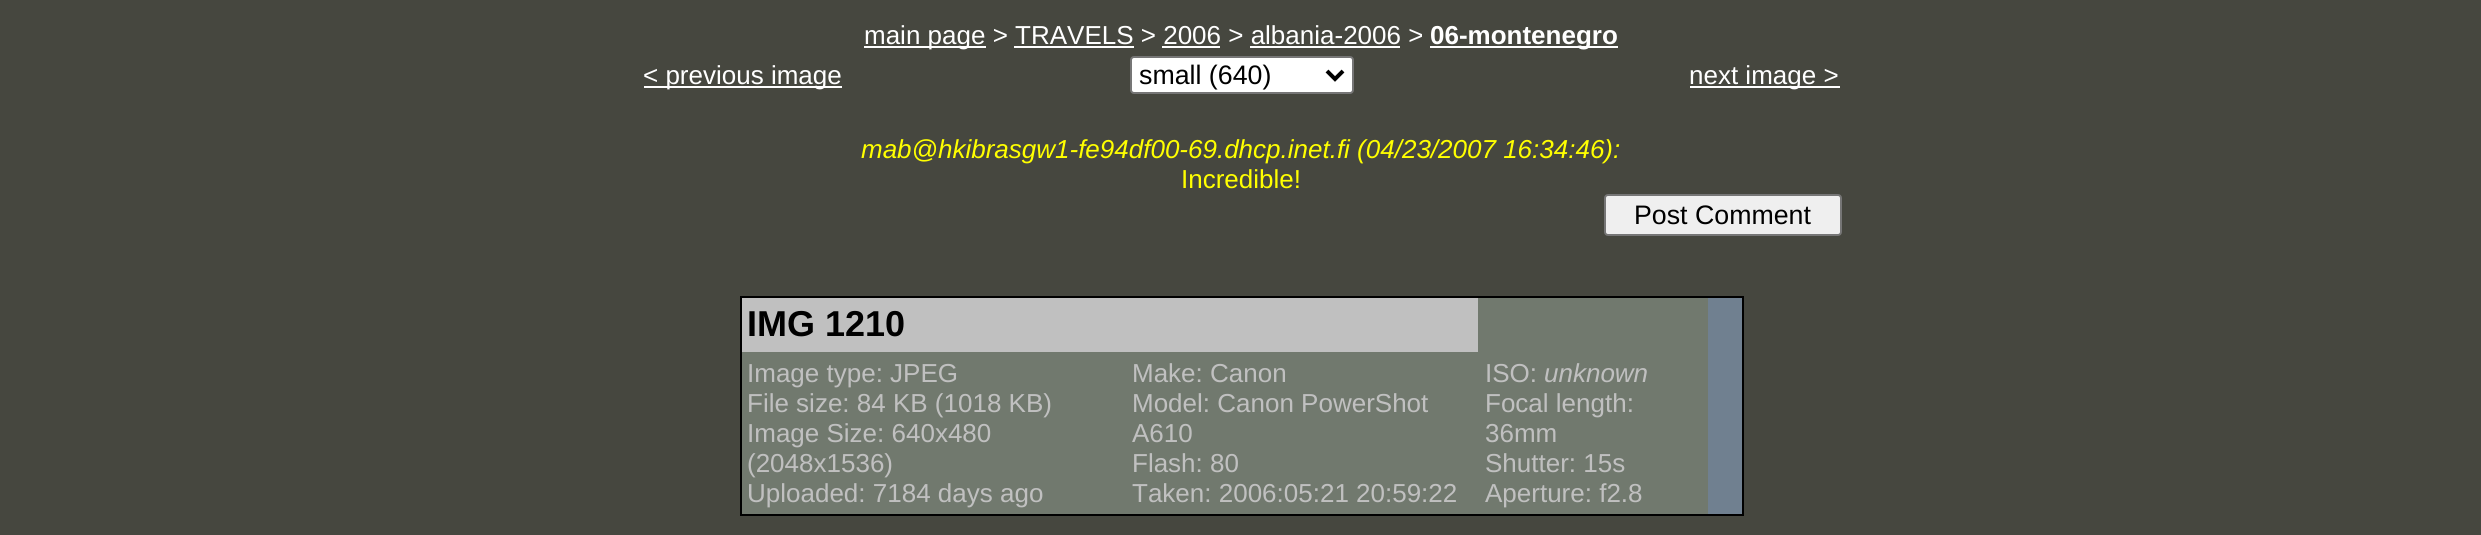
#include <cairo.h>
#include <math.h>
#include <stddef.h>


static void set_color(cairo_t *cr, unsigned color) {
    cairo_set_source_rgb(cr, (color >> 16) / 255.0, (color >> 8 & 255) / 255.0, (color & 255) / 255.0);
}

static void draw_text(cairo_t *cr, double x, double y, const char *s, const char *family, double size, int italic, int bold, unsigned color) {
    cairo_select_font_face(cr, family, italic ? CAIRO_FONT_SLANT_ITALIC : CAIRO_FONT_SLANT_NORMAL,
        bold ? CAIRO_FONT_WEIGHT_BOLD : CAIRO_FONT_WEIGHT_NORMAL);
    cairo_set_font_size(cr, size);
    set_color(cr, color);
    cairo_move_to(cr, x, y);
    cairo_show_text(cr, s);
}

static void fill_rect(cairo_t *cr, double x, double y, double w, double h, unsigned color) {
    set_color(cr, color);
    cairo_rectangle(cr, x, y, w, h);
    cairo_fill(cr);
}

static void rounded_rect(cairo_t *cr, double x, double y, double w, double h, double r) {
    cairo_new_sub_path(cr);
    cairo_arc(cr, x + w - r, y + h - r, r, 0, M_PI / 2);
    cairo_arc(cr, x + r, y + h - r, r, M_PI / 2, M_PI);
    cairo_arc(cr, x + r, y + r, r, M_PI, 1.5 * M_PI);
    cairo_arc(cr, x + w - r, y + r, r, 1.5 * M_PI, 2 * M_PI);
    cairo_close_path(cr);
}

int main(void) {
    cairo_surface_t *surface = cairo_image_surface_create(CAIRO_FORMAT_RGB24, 2481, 535);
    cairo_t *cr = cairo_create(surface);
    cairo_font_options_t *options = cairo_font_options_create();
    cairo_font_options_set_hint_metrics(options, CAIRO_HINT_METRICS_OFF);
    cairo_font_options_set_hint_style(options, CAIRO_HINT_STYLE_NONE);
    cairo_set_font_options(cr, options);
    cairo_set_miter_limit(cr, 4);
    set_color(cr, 0x46473F);
    cairo_paint(cr);
    fill_rect(cr, 864, 46, 122, 2, 0xFFFFFF);
    draw_text(cr, 864, 44, "main page > TRAVELS > 2006 > albania-2006 >", "Liberation Sans", 26, 0, 0, 0xFFFFFF);
    fill_rect(cr, 1014, 46, 120, 2, 0xFFFFFF);
    fill_rect(cr, 1162, 46, 58, 2, 0xFFFFFF);
    fill_rect(cr, 1250, 46, 150, 2, 0xFFFFFF);
    fill_rect(cr, 1430, 46, 188, 2, 0xFFFFFF);
    draw_text(cr, 1430, 44, "06-montenegro", "Liberation Sans", 26, 0, 1, 0xFFFFFF);
    fill_rect(cr, 644, 86, 198, 2, 0xFFFFFF);
    draw_text(cr, 643, 84, "< previous image", "Liberation Sans", 26, 0, 0, 0xFFFFFF);
    rounded_rect(cr, 1131, 57, 222, 36, 3);
    cairo_fill_preserve(cr);
    set_color(cr, 0x767676);
    cairo_stroke(cr);
    cairo_new_path(cr);
    cairo_move_to(cr, 1327, 71);
    cairo_line_to(cr, 1335, 79);
    cairo_line_to(cr, 1343, 71);
    set_color(cr, 0x000000);
    cairo_set_line_width(cr, 4);
    cairo_stroke(cr);
    draw_text(cr, 1139, 84, "small (640)", "Liberation Sans", 26.75, 0, 0, 0x000000);
    fill_rect(cr, 1690, 86, 150, 2, 0xFFFFFF);
    draw_text(cr, 1689, 84, "next image >", "Liberation Sans", 26, 0, 0, 0xFFFFFF);
    draw_text(cr, 861, 158, "mab@hkibrasgw1-fe94df00-69.dhcp.inet.fi (04/23/2007 16:34:46):", "Liberation Sans", 26, 1, 0, 0xFFFF00);
    draw_text(cr, 1181, 188, "Incredible!", "Liberation Sans", 26, 0, 0, 0xFFFF00);
    set_color(cr, 0xEFEFEF);
    rounded_rect(cr, 1605, 195, 236, 40, 3);
    cairo_fill_preserve(cr);
    set_color(cr, 0x767676);
    cairo_set_line_width(cr, 2);
    cairo_stroke(cr);
    draw_text(cr, 1634, 224, "Post Comment", "Liberation Sans", 26.75, 0, 0, 0x000000);
    fill_rect(cr, 740, 296, 1004, 220, 0x000000);
    fill_rect(cr, 742, 298, 966, 216, 0x71796E);
    fill_rect(cr, 742, 298, 736, 54, 0xC0C0C0);
    draw_text(cr, 747, 336, "IMG 1210", "Liberation Sans", 36, 0, 1, 0x000000);
    fill_rect(cr, 1708, 298, 34, 216, 0x708090);
    draw_text(cr, 747, 382, "Image type: JPEG", "Liberation Sans", 26, 0, 0, 0xC0C0C0);
    draw_text(cr, 747, 412, "File size: 84 KB (1018 KB)", "Liberation Sans", 26, 0, 0, 0xC0C0C0);
    draw_text(cr, 747, 442, "Image Size: 640x480", "Liberation Sans", 26, 0, 0, 0xC0C0C0);
    draw_text(cr, 747, 472, "(2048x1536)", "Liberation Sans", 26, 0, 0, 0xC0C0C0);
    draw_text(cr, 747, 502, "Uploaded: 7184 days ago", "Liberation Sans", 26, 0, 0, 0xC0C0C0);
    draw_text(cr, 1132, 382, "Make: Canon", "Liberation Sans", 26, 0, 0, 0xC0C0C0);
    draw_text(cr, 1132, 412, "Model: Canon PowerShot", "Liberation Sans", 26, 0, 0, 0xC0C0C0);
    draw_text(cr, 1132, 442, "A610", "Liberation Sans", 26, 0, 0, 0xC0C0C0);
    draw_text(cr, 1132, 472, "Flash: 80", "Liberation Sans", 26, 0, 0, 0xC0C0C0);
    draw_text(cr, 1132, 502, "Taken: 2006:05:21 20:59:22", "Liberation Sans", 26, 0, 0, 0xC0C0C0);
    draw_text(cr, 1485, 382, "ISO:", "Liberation Sans", 26, 0, 0, 0xC0C0C0);
    draw_text(cr, 1544, 382, "unknown", "Liberation Sans", 26, 1, 0, 0xC0C0C0);
    draw_text(cr, 1485, 412, "Focal length:", "Liberation Sans", 26, 0, 0, 0xC0C0C0);
    draw_text(cr, 1485, 442, "36mm", "Liberation Sans", 26, 0, 0, 0xC0C0C0);
    draw_text(cr, 1485, 472, "Shutter: 15s", "Liberation Sans", 26, 0, 0, 0xC0C0C0);
    draw_text(cr, 1485, 502, "Aperture: f2.8", "Liberation Sans", 26, 0, 0, 0xC0C0C0);
    cairo_surface_write_to_png(surface, "output.png");
    cairo_font_options_destroy(options);
    cairo_destroy(cr);
    cairo_surface_destroy(surface);
    return 0;
}
